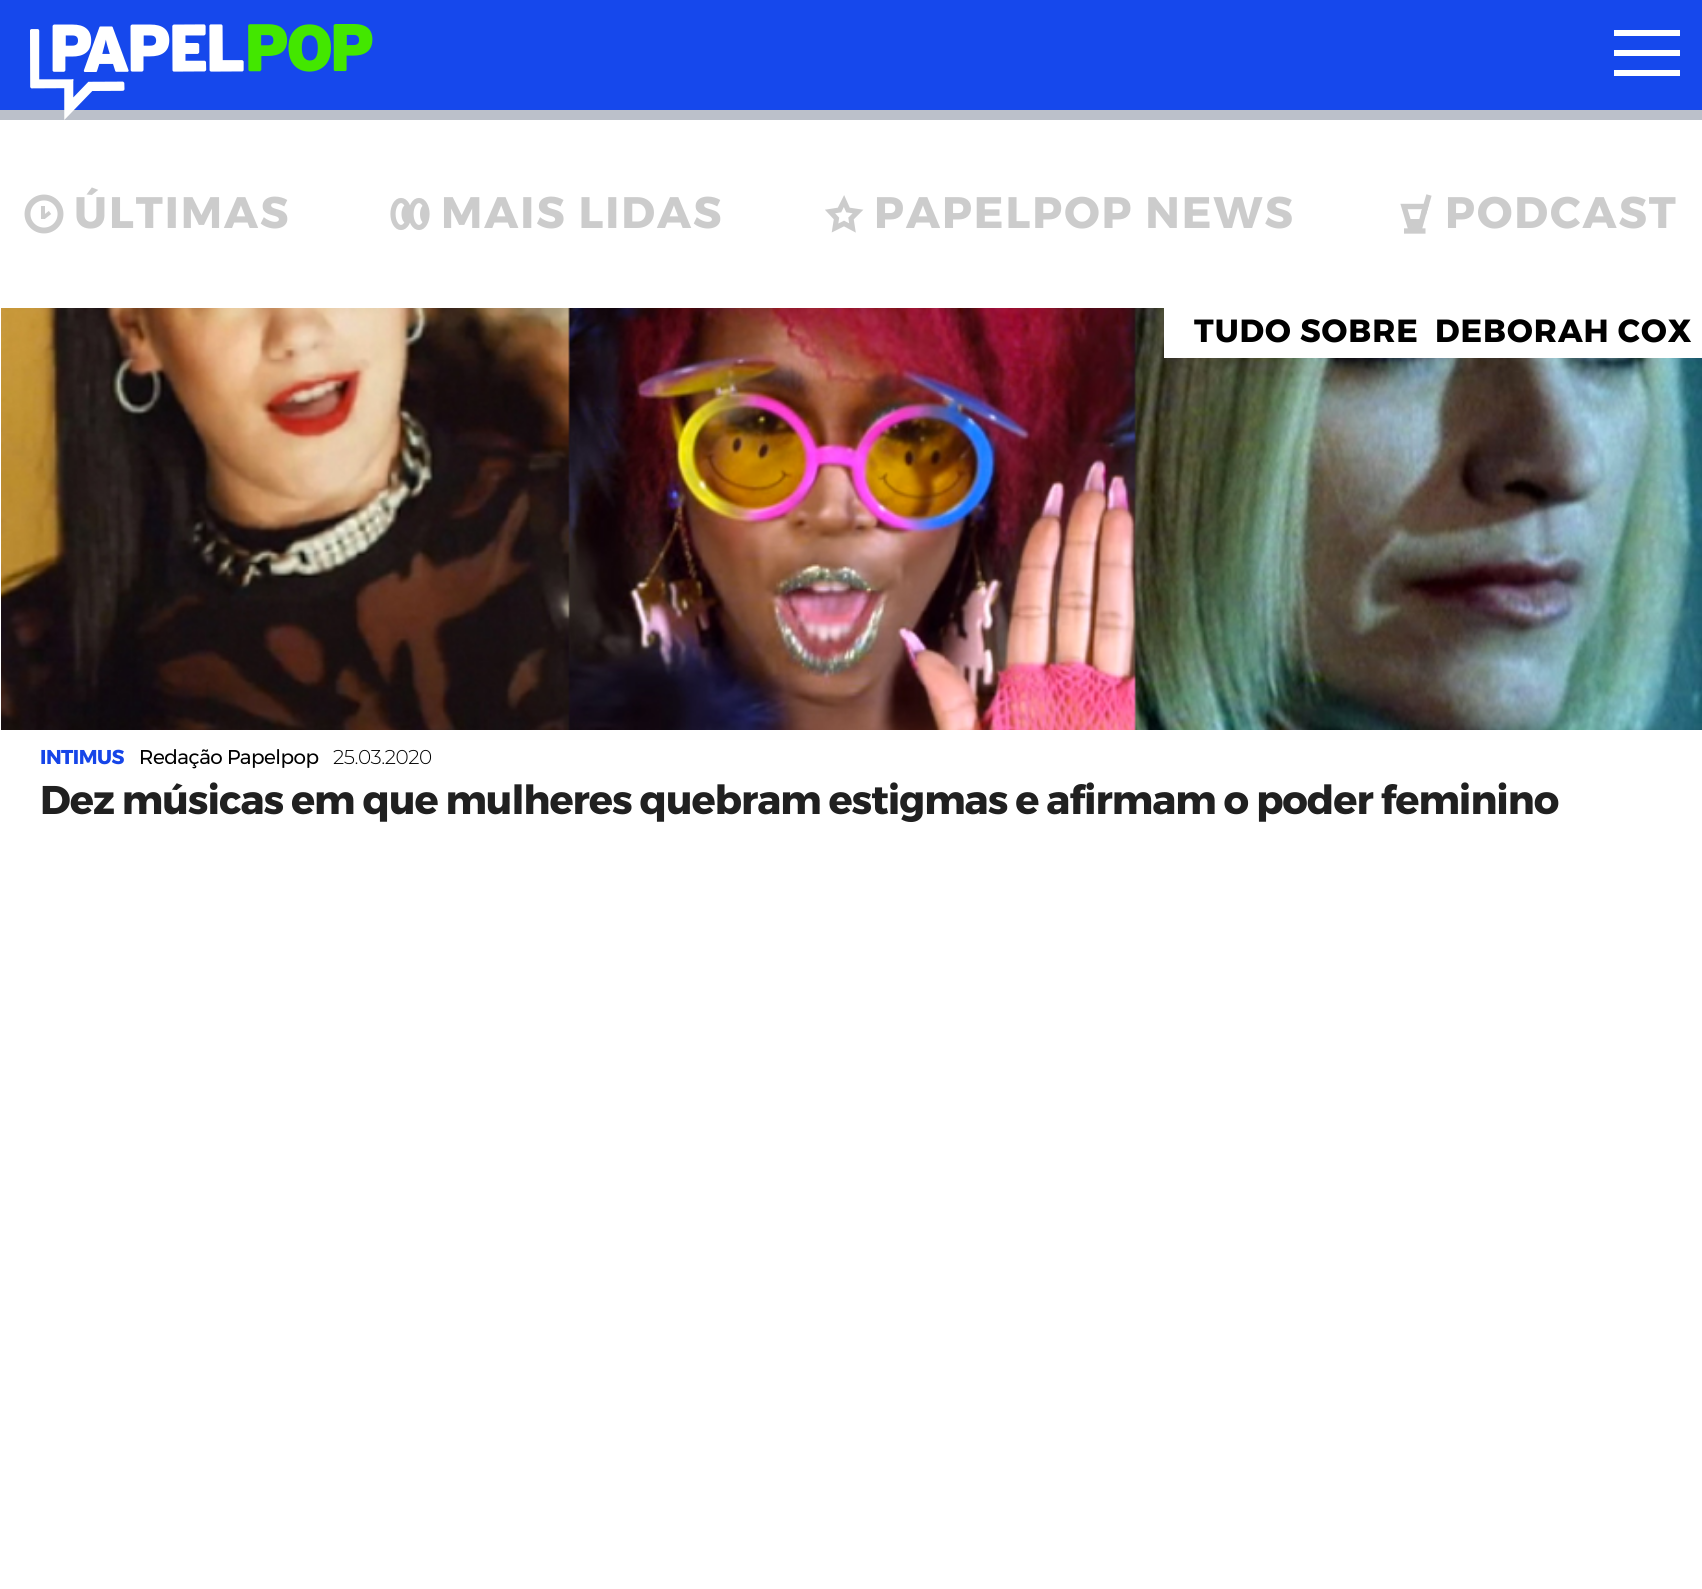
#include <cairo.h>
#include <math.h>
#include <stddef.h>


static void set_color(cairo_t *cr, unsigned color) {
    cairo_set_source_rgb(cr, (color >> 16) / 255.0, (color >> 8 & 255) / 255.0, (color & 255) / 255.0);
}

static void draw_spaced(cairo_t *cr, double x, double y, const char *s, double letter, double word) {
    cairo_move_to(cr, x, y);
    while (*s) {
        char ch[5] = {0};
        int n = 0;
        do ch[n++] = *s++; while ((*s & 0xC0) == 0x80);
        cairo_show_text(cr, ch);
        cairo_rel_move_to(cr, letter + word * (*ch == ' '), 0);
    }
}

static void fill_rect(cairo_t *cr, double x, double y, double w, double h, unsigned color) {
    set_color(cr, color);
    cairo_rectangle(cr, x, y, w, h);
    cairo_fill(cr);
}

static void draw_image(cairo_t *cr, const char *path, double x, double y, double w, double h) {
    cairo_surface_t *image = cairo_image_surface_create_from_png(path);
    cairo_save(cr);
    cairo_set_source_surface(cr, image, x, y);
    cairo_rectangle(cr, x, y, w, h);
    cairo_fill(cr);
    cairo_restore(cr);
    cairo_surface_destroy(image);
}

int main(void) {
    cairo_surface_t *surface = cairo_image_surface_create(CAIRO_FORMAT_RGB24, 1702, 1589);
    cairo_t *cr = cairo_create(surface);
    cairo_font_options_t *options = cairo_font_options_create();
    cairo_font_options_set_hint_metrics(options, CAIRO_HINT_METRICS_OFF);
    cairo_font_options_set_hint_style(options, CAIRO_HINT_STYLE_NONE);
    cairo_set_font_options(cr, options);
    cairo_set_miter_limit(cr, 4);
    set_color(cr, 0xFFFFFF);
    cairo_paint(cr);
    fill_rect(cr, 0, 0, 1702, 110, 0x1648EC);
    fill_rect(cr, 0, 110, 1702, 10, 0xBBC0CA);
    draw_image(cr, "assets/img1.png", 30, 24, 343, 96);
    fill_rect(cr, 1614, 30, 66, 6, 0xFFFFFF);
    fill_rect(cr, 1614, 50, 66, 6, 0xFFFFFF);
    fill_rect(cr, 1614, 70, 66, 6, 0xFFFFFF);
    cairo_arc(cr, 44, 214, 16.5, 0, 2 * M_PI);
    set_color(cr, 0xCCCCCC);
    cairo_set_line_width(cr, 5.9);
    cairo_stroke(cr);
    fill_rect(cr, 41, 206, 4, 13, 0xCDCDCD);
    cairo_new_path(cr);
    cairo_move_to(cr, 43.5, 217.5);
    cairo_line_to(cr, 50, 212.5);
    set_color(cr, 0xCCCCCC);
    cairo_set_line_width(cr, 3.9);
    cairo_stroke(cr);
    cairo_select_font_face(cr, "Montserrat", CAIRO_FONT_SLANT_NORMAL, CAIRO_FONT_WEIGHT_BOLD);
    cairo_set_font_size(cr, 44);
    draw_spaced(cr, 74, 228, "ÚLTIMAS", 2, 0);
    cairo_new_path(cr);
    cairo_move_to(cr, 401, 200.5);
    cairo_curve_to(cr, 405.5, 200.5, 409, 206.5, 409, 214);
    cairo_curve_to(cr, 409, 221.5, 405.5, 227.5, 401, 227.5);
    cairo_curve_to(cr, 396.5, 227.5, 393, 221.5, 393, 214);
    cairo_curve_to(cr, 393, 206.5, 396.5, 200.5, 401, 200.5);
    cairo_close_path(cr);
    cairo_set_line_width(cr, 5.2);
    cairo_stroke(cr);
    cairo_new_path(cr);
    cairo_move_to(cr, 406, 205);
    cairo_curve_to(cr, 408.5, 205, 410.5, 209, 410.5, 214);
    cairo_curve_to(cr, 410.5, 219, 408.5, 223, 406, 223);
    cairo_curve_to(cr, 403.5, 223, 401.5, 219, 401.5, 214);
    cairo_curve_to(cr, 401.5, 209, 403.5, 205, 406, 205);
    cairo_close_path(cr);
    cairo_fill(cr);
    cairo_new_path(cr);
    cairo_move_to(cr, 419, 200.5);
    cairo_curve_to(cr, 423.5, 200.5, 427, 206.5, 427, 214);
    cairo_curve_to(cr, 427, 221.5, 423.5, 227.5, 419, 227.5);
    cairo_curve_to(cr, 414.5, 227.5, 411, 221.5, 411, 214);
    cairo_curve_to(cr, 411, 206.5, 414.5, 200.5, 419, 200.5);
    cairo_close_path(cr);
    cairo_stroke(cr);
    cairo_new_path(cr);
    cairo_move_to(cr, 424.5, 205);
    cairo_curve_to(cr, 427, 205, 429, 209, 429, 214);
    cairo_curve_to(cr, 429, 219, 427, 223, 424.5, 223);
    cairo_curve_to(cr, 422, 223, 420, 219, 420, 214);
    cairo_curve_to(cr, 420, 209, 422, 205, 424.5, 205);
    cairo_close_path(cr);
    cairo_fill(cr);
    draw_spaced(cr, 441, 228, "MAIS LIDAS", 2, 0);
    cairo_new_path(cr);
    cairo_move_to(cr, 844, 223.5);
    cairo_line_to(cr, 835, 228);
    cairo_line_to(cr, 836.5, 218.5);
    cairo_line_to(cr, 830, 211.5);
    cairo_line_to(cr, 839.5, 210);
    cairo_line_to(cr, 844, 201);
    cairo_line_to(cr, 848, 210);
    cairo_line_to(cr, 858, 211.5);
    cairo_line_to(cr, 851, 218.5);
    cairo_line_to(cr, 852.5, 228);
    cairo_close_path(cr);
    cairo_set_line_width(cr, 5.1);
    cairo_stroke(cr);
    draw_spaced(cr, 874, 228, "PAPELPOP NEWS", 2, 0);
    cairo_new_path(cr);
    cairo_move_to(cr, 1411.5, 231.5);
    cairo_line_to(cr, 1404, 206.5);
    cairo_line_to(cr, 1425.5, 206.5);
    cairo_line_to(cr, 1418.5, 232);
    cairo_move_to(cr, 1404, 231);
    cairo_line_to(cr, 1425.5, 231);
    cairo_set_line_width(cr, 5.4);
    cairo_stroke(cr);
    cairo_new_path(cr);
    cairo_move_to(cr, 1409, 219);
    cairo_line_to(cr, 1422, 219);
    cairo_line_to(cr, 1417, 231);
    cairo_line_to(cr, 1414, 231);
    cairo_close_path(cr);
    cairo_fill(cr);
    cairo_new_path(cr);
    cairo_move_to(cr, 1423.5, 214);
    cairo_line_to(cr, 1429, 195);
    cairo_stroke(cr);
    draw_spaced(cr, 1445, 228, "PODCAST", 2, 0);
    draw_image(cr, "assets/img2.png", 1, 308, 1701, 422);
    fill_rect(cr, 1164, 308, 538, 50, 0xFFFFFF);
    cairo_set_font_size(cr, 32);
    set_color(cr, 0x000000);
    draw_spaced(cr, 1194, 342, "TUDO SOBRE", 1, 0);
    draw_spaced(cr, 1435, 342, "DEBORAH COX", 1, 0);
    cairo_set_font_size(cr, 20);
    set_color(cr, 0x1645E8);
    draw_spaced(cr, 40, 764, "INTIMUS", -0.5, 0);
    cairo_select_font_face(cr, "Montserrat", CAIRO_FONT_SLANT_NORMAL, CAIRO_FONT_WEIGHT_NORMAL);
    set_color(cr, 0x000000);
    draw_spaced(cr, 139, 764, "Redação Papelpop", -0.5, 0);
    cairo_select_font_face(cr, "Montserrat Light", CAIRO_FONT_SLANT_NORMAL, CAIRO_FONT_WEIGHT_NORMAL);
    draw_spaced(cr, 333, 764, "25.03.2020", -0.5, 0);
    cairo_select_font_face(cr, "Montserrat", CAIRO_FONT_SLANT_NORMAL, CAIRO_FONT_WEIGHT_BOLD);
    cairo_set_font_size(cr, 40);
    set_color(cr, 0x202020);
    draw_spaced(cr, 40, 814, "Dez músicas em que mulheres quebram estigmas e afirmam o poder feminino", -1, 0);
    cairo_surface_write_to_png(surface, "output.png");
    cairo_font_options_destroy(options);
    cairo_destroy(cr);
    cairo_surface_destroy(surface);
    return 0;
}
